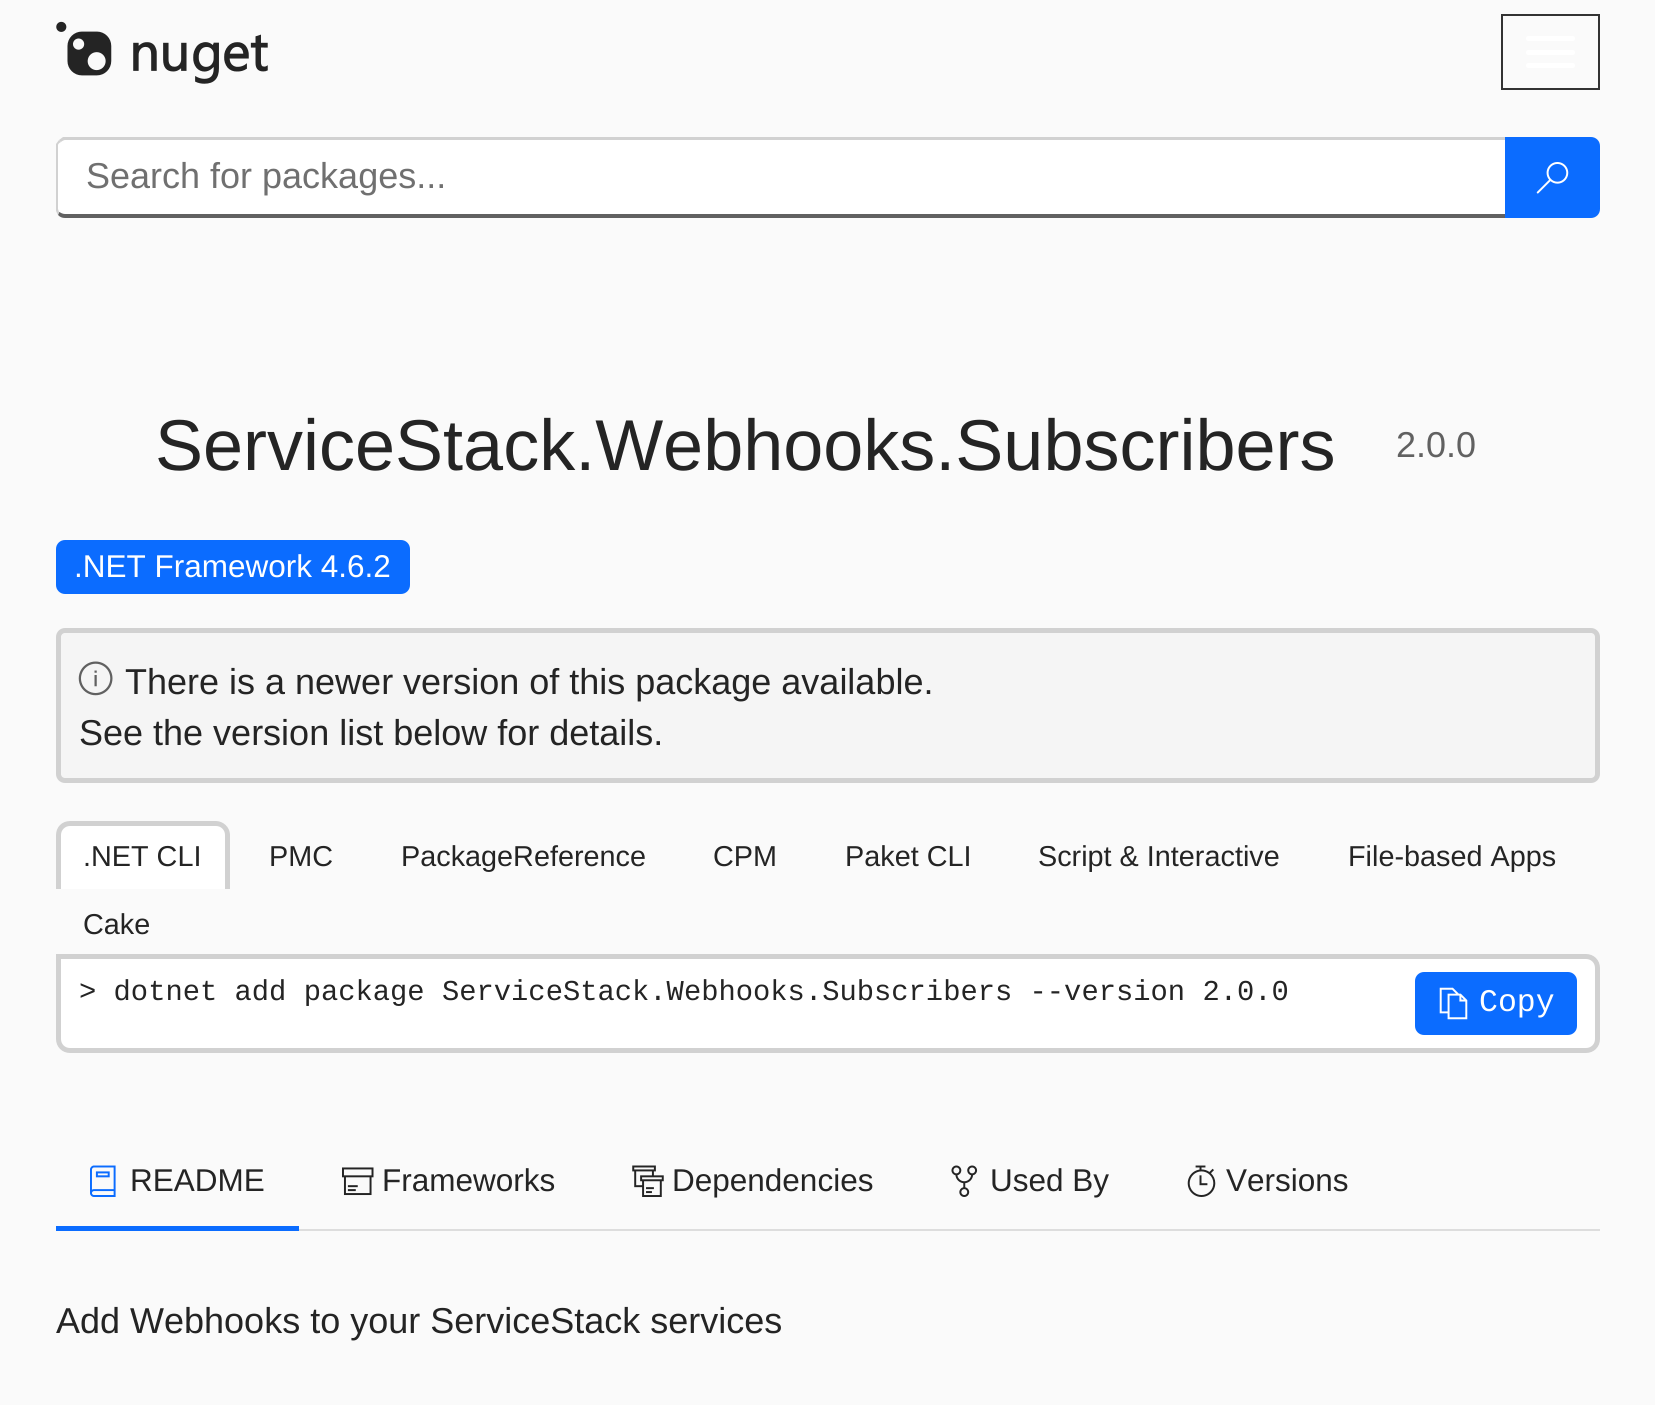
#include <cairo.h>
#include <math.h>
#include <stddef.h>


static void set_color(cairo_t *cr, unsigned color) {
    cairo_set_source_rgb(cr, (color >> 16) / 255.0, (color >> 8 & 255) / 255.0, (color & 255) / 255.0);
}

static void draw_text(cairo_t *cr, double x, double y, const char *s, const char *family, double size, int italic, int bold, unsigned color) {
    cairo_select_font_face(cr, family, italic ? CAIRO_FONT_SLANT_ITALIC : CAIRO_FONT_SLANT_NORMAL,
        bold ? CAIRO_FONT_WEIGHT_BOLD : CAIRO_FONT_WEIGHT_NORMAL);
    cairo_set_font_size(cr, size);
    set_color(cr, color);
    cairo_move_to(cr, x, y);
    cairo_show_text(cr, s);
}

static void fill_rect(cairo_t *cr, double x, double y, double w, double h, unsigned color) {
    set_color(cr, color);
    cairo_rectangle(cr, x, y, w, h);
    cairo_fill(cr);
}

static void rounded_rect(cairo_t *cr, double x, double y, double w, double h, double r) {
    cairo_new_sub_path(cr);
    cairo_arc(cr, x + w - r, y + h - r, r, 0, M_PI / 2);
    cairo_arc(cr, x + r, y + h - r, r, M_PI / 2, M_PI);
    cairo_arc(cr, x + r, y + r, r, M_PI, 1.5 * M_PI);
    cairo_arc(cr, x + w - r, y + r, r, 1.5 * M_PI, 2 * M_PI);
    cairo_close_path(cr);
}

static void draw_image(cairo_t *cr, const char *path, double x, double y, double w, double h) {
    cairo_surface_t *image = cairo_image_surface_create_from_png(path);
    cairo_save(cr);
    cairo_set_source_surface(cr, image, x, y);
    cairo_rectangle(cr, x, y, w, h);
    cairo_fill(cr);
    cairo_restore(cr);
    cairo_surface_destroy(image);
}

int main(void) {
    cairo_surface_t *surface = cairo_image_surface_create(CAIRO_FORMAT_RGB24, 1655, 1405);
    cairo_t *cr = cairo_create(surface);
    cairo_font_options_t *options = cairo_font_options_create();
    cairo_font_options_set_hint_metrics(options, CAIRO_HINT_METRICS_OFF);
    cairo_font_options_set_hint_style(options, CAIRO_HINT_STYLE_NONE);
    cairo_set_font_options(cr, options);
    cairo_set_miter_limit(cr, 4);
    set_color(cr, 0xFAFAFA);
    cairo_paint(cr);
    draw_image(cr, "assets/img1.png", 56, 21, 212, 63);
    cairo_rectangle(cr, 1502, 15, 97, 74);
    set_color(cr, 0x333333);
    cairo_stroke(cr);
    set_color(cr, 0xFFFFFF);
    rounded_rect(cr, 1526, 36, 49, 5, 2.5);
    cairo_fill(cr);
    rounded_rect(cr, 1526, 50, 49, 5, 2.5);
    cairo_fill(cr);
    rounded_rect(cr, 1526, 63, 49, 5, 2.5);
    cairo_fill(cr);
    cairo_new_path(cr);
    cairo_move_to(cr, 65, 140);
    cairo_line_to(cr, 1505, 140);
    cairo_line_to(cr, 1505, 214);
    cairo_line_to(cr, 65, 214);
    cairo_curve_to(cr, 62, 214, 58, 212, 58, 209);
    cairo_line_to(cr, 58, 146);
    cairo_curve_to(cr, 58, 143, 62, 140, 65, 140);
    cairo_close_path(cr);
    cairo_fill(cr);
    set_color(cr, 0xD1D1D1);
    cairo_new_path(cr);
    cairo_move_to(cr, 65, 140);
    cairo_curve_to(cr, 64, 140, 62, 141, 61, 142);
    cairo_line_to(cr, 59, 140);
    cairo_line_to(cr, 63, 137);
    cairo_line_to(cr, 1508, 137);
    cairo_line_to(cr, 1505, 140);
    cairo_close_path(cr);
    cairo_fill(cr);
    set_color(cr, 0x616161);
    cairo_new_path(cr);
    cairo_move_to(cr, 1507, 218);
    cairo_line_to(cr, 65, 218);
    cairo_curve_to(cr, 62, 218, 60, 217, 58, 215);
    cairo_line_to(cr, 59, 212);
    cairo_curve_to(cr, 61, 213, 63, 214, 65, 214);
    cairo_line_to(cr, 1505, 214);
    cairo_line_to(cr, 1505, 213);
    cairo_close_path(cr);
    cairo_fill(cr);
    set_color(cr, 0xD1D1D1);
    cairo_new_path(cr);
    cairo_move_to(cr, 56, 144);
    cairo_line_to(cr, 59, 140);
    cairo_line_to(cr, 61, 142);
    cairo_curve_to(cr, 59, 143, 58, 144, 58, 145);
    cairo_line_to(cr, 58, 209);
    cairo_line_to(cr, 59, 212);
    cairo_line_to(cr, 58, 215);
    cairo_line_to(cr, 56, 211);
    cairo_close_path(cr);
    cairo_fill(cr);
    draw_text(cr, 86, 188, "Search for packages...", "Liberation Sans", 36, 0, 0, 0x707070);
    set_color(cr, 0x0B6CFF);
    cairo_new_path(cr);
    cairo_move_to(cr, 1505, 137);
    cairo_line_to(cr, 1591, 137);
    cairo_curve_to(cr, 1596, 137, 1600, 141, 1600, 146);
    cairo_line_to(cr, 1600, 209);
    cairo_curve_to(cr, 1600, 214, 1596, 218, 1591, 218);
    cairo_line_to(cr, 1505, 218);
    cairo_close_path(cr);
    cairo_fill(cr);
    draw_image(cr, "assets/img2.png", 1536, 162, 33, 32);
    draw_text(cr, 155, 470, "ServiceStack.Webhooks.Subscribers", "Liberation Sans", 72, 0, 0, 0x242424);
    draw_text(cr, 1396, 457, "2.0.0", "Liberation Sans", 36, 0, 0, 0x616161);
    set_color(cr, 0x0B6CFF);
    rounded_rect(cr, 56, 540, 354, 54, 9);
    cairo_fill(cr);
    draw_text(cr, 74, 577, ".NET Framework 4.6.2", "Liberation Sans", 31.5, 0, 0, 0xFFFFFF);
    set_color(cr, 0xF5F5F5);
    rounded_rect(cr, 58.5, 630.5, 1539, 150, 6.5);
    cairo_fill_preserve(cr);
    set_color(cr, 0xD1D1D1);
    cairo_set_line_width(cr, 5);
    cairo_stroke(cr);
    draw_image(cr, "assets/img3.png", 78, 661, 35, 35);
    draw_text(cr, 125, 694, "There is a newer version of this package available.", "Liberation Sans", 36, 0, 0, 0x242424);
    draw_text(cr, 79, 745, "See the version list below for details.", "Liberation Sans", 36, 0, 0, 0x242424);
    set_color(cr, 0xFFFFFF);
    cairo_new_path(cr);
    cairo_move_to(cr, 70, 821);
    cairo_line_to(cr, 216, 821);
    cairo_curve_to(cr, 223.5, 821, 230, 827.5, 230, 835);
    cairo_line_to(cr, 230, 889);
    cairo_line_to(cr, 56, 889);
    cairo_line_to(cr, 56, 835);
    cairo_curve_to(cr, 56, 827.5, 62.5, 821, 70, 821);
    cairo_close_path(cr);
    cairo_fill(cr);
    set_color(cr, 0xD1D1D1);
    cairo_set_fill_rule(cr, CAIRO_FILL_RULE_EVEN_ODD);
    cairo_new_path(cr);
    cairo_move_to(cr, 70, 821);
    cairo_line_to(cr, 216, 821);
    cairo_curve_to(cr, 223, 821, 230, 827, 230, 835);
    cairo_line_to(cr, 230, 889);
    cairo_line_to(cr, 56, 889);
    cairo_line_to(cr, 56, 835);
    cairo_curve_to(cr, 56, 827, 62, 821, 70, 821);
    cairo_close_path(cr);
    cairo_move_to(cr, 70, 826);
    cairo_line_to(cr, 216, 826);
    cairo_curve_to(cr, 221, 826, 225, 830, 225, 835);
    cairo_line_to(cr, 225, 889);
    cairo_line_to(cr, 61, 889);
    cairo_line_to(cr, 61, 835);
    cairo_curve_to(cr, 61, 830, 65, 826, 70, 826);
    cairo_close_path(cr);
    cairo_fill(cr);
    draw_text(cr, 83, 866, ".NET CLI", "Liberation Sans", 28.8, 0, 0, 0x242424);
    draw_text(cr, 269, 866, "PMC", "Liberation Sans", 28.8, 0, 0, 0x242424);
    draw_text(cr, 401, 866, "PackageReference", "Liberation Sans", 28.8, 0, 0, 0x242424);
    draw_text(cr, 713, 866, "CPM", "Liberation Sans", 28.8, 0, 0, 0x242424);
    draw_text(cr, 845, 866, "Paket CLI", "Liberation Sans", 28.8, 0, 0, 0x242424);
    draw_text(cr, 1038, 866, "Script & Interactive", "Liberation Sans", 28.8, 0, 0, 0x242424);
    draw_text(cr, 1348, 866, "File-based Apps", "Liberation Sans", 28.8, 0, 0, 0x242424);
    draw_text(cr, 83, 934, "Cake", "Liberation Sans", 28.8, 0, 0, 0x242424);
    set_color(cr, 0xFFFFFF);
    cairo_new_path(cr);
    cairo_move_to(cr, 58.5, 956.5);
    cairo_line_to(cr, 1586, 956.5);
    cairo_curve_to(cr, 1592.5, 956.5, 1597.5, 961.5, 1597.5, 968);
    cairo_line_to(cr, 1597.5, 1039);
    cairo_curve_to(cr, 1597.5, 1045.5, 1592.5, 1050.5, 1586, 1050.5);
    cairo_line_to(cr, 70, 1050.5);
    cairo_curve_to(cr, 63.5, 1050.5, 58.5, 1045.5, 58.5, 1039);
    cairo_close_path(cr);
    cairo_fill_preserve(cr);
    set_color(cr, 0xD1D1D1);
    cairo_stroke(cr);
    draw_text(cr, 79, 1000, "> dotnet add package ServiceStack.Webhooks.Subscribers --version 2.0.0", "Liberation Mono", 28.8, 0, 0, 0x242424);
    set_color(cr, 0x0B6CFF);
    rounded_rect(cr, 1415, 972, 162, 63, 9);
    cairo_fill(cr);
    draw_image(cr, "assets/img4.png", 1439, 987, 29, 33);
    draw_text(cr, 1479, 1011, "Copy", "Liberation Mono", 31.5, 0, 0, 0xFFFFFF);
    fill_rect(cr, 299, 1229, 1301, 2, 0xDDDDDD);
    fill_rect(cr, 56, 1226, 243, 5, 0x0B6CFF);
    draw_image(cr, "assets/img5.png", 90, 1165, 26, 32);
    draw_text(cr, 130, 1191, "README", "Liberation Sans", 31.5, 0, 0, 0x242424);
    draw_image(cr, "assets/img6.png", 342, 1167, 32, 29);
    draw_text(cr, 382, 1191, "Frameworks", "Liberation Sans", 31.5, 0, 0, 0x242424);
    draw_image(cr, "assets/img7.png", 632, 1165, 32, 32);
    draw_text(cr, 672, 1191, "Dependencies", "Liberation Sans", 31.5, 0, 0, 0x242424);
    draw_image(cr, "assets/img8.png", 951, 1165, 27, 32);
    draw_text(cr, 990, 1191, "Used By", "Liberation Sans", 31.5, 0, 0, 0x242424);
    draw_image(cr, "assets/img9.png", 1187, 1165, 29, 32);
    draw_text(cr, 1226, 1191, "Versions", "Liberation Sans", 31.5, 0, 0, 0x242424);
    draw_text(cr, 56, 1333, "Add Webhooks to your ServiceStack services", "Liberation Sans", 36, 0, 0, 0x242424);
    cairo_surface_write_to_png(surface, "output.png");
    cairo_font_options_destroy(options);
    cairo_destroy(cr);
    cairo_surface_destroy(surface);
    return 0;
}
